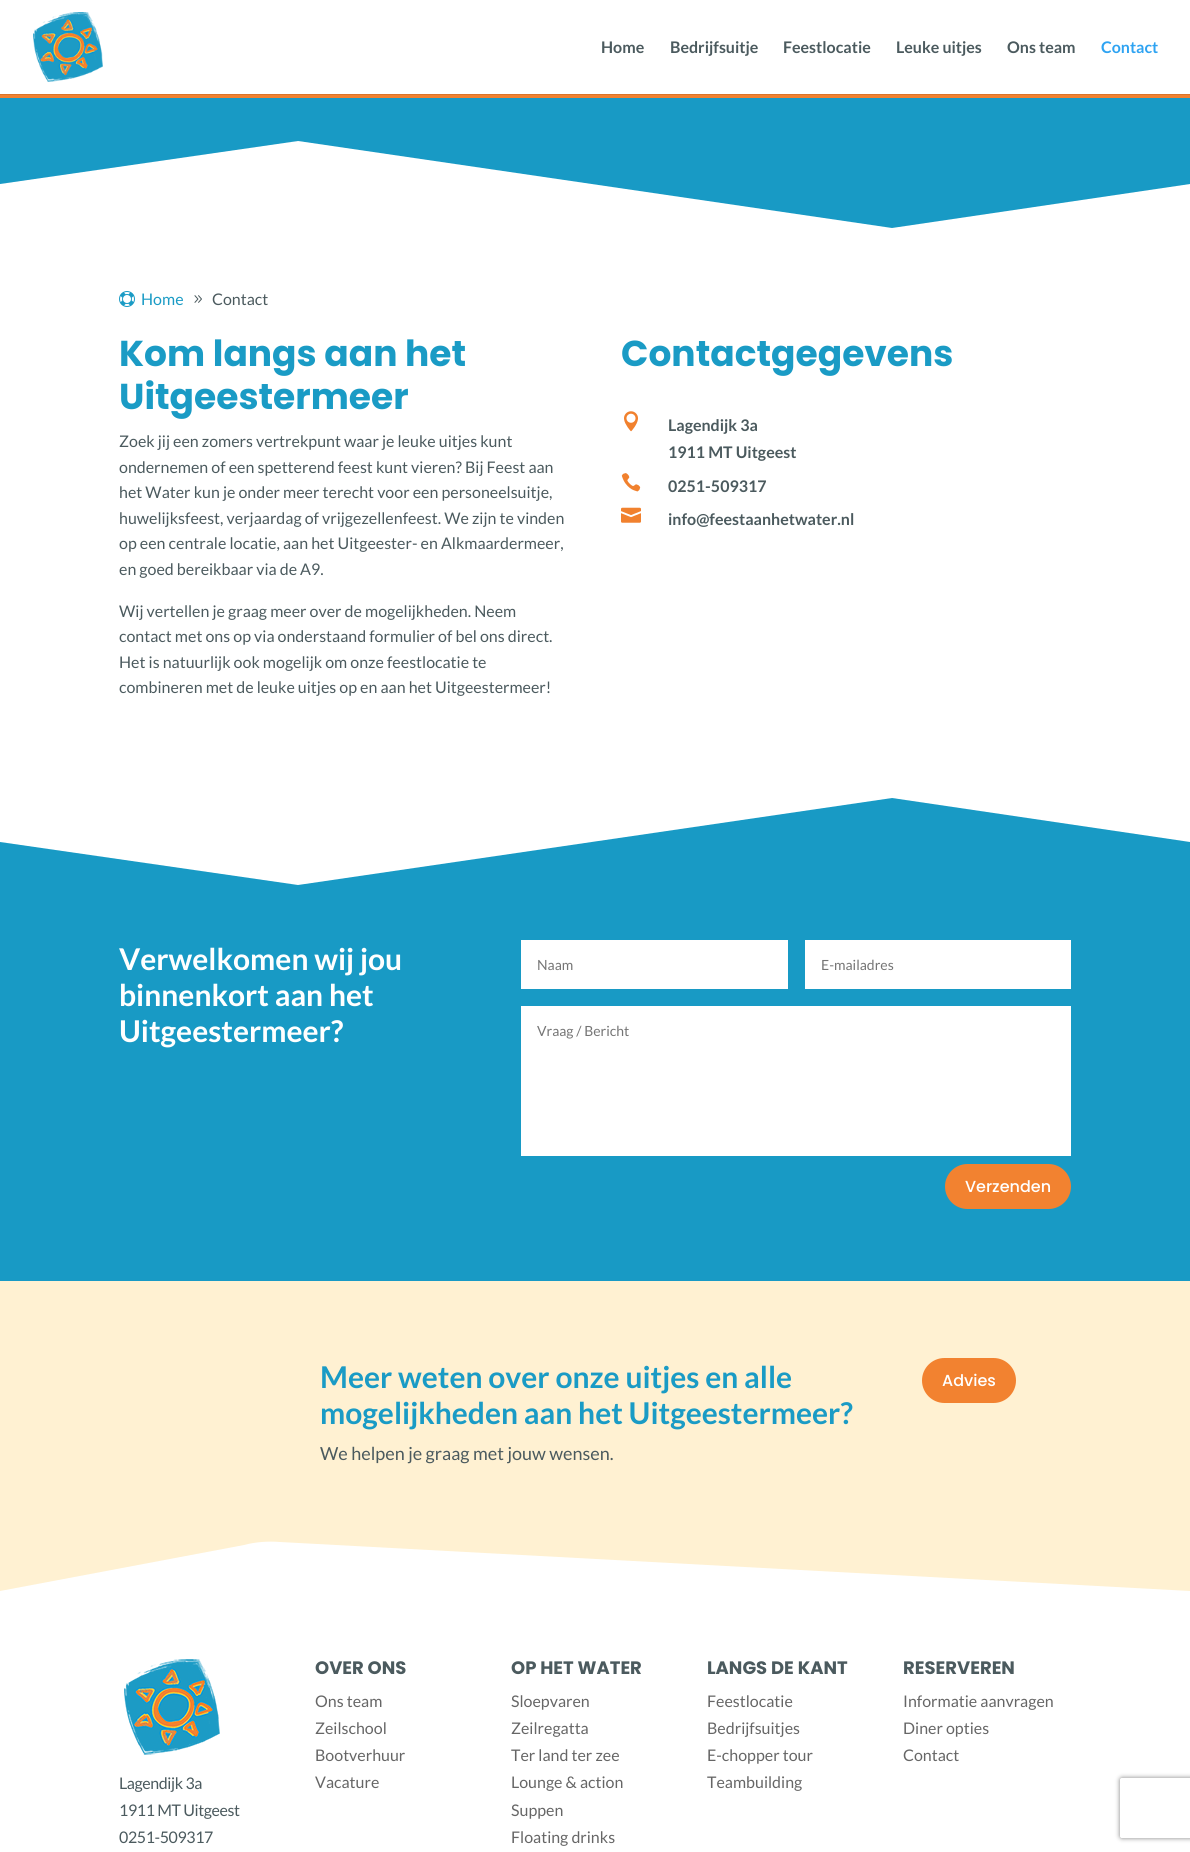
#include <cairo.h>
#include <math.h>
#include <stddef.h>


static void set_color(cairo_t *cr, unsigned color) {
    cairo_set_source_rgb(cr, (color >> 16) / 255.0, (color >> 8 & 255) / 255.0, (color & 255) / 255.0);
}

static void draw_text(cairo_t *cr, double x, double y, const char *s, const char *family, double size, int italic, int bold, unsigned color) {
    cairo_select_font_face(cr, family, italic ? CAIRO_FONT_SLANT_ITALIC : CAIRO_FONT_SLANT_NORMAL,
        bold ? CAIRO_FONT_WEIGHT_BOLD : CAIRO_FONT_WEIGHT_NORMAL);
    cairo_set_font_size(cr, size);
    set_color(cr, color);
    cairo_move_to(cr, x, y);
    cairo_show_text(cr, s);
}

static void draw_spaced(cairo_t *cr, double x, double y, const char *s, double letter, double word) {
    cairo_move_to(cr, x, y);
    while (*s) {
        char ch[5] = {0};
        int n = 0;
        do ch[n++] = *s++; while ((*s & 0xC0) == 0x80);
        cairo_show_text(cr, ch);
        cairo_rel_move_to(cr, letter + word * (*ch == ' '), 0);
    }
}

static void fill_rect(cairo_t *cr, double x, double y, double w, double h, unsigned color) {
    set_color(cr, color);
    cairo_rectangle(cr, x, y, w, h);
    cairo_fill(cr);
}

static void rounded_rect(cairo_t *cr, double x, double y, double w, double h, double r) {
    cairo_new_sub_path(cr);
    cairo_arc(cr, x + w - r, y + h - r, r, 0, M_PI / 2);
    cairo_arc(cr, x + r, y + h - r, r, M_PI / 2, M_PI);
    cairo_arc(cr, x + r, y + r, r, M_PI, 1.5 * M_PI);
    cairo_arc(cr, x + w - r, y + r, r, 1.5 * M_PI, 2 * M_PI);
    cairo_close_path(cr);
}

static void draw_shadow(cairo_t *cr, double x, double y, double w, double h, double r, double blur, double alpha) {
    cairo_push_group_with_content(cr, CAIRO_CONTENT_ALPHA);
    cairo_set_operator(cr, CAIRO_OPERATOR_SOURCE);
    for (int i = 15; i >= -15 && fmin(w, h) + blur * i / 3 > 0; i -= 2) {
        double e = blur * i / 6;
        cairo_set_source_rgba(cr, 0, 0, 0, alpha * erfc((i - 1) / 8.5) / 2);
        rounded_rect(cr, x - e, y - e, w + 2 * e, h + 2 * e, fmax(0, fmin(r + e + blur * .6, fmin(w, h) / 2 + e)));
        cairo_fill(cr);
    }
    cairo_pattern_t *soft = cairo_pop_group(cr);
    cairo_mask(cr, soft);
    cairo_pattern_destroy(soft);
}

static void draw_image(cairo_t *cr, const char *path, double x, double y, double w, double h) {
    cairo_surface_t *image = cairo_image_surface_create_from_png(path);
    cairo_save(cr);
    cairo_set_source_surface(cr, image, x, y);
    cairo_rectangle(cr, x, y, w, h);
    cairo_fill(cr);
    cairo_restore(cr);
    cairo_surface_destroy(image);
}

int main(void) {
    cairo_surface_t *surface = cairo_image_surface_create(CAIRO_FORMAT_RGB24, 1190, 1852);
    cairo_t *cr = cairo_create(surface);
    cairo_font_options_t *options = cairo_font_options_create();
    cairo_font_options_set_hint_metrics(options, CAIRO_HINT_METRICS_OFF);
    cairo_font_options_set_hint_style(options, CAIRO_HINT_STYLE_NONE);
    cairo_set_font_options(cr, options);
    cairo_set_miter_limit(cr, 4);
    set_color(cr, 0xFFFFFF);
    cairo_paint(cr);
    fill_rect(cr, 0, 94, 1190, 1, 0xDA752B);
    draw_image(cr, "assets/img1.png", 33, 12, 70, 70);
    draw_text(cr, 601, 53, "Home", "Lato", 16, 0, 1, 0x4B5A5E);
    draw_text(cr, 670, 53, "Bedrijfsuitje", "Lato", 16, 0, 1, 0x4B5A5E);
    draw_text(cr, 783, 53, "Feestlocatie", "Lato", 16, 0, 1, 0x4B5A5E);
    draw_text(cr, 896, 53, "Leuke uitjes", "Lato", 16, 0, 1, 0x4B5A5E);
    draw_text(cr, 1007, 53, "Ons team", "Lato", 16, 0, 1, 0x4B5A5E);
    draw_text(cr, 1101, 53, "Contact", "Lato", 16, 0, 1, 0x2EA3F2);
    fill_rect(cr, 0, 98, 1190, 130, 0x189AC5);
    fill_rect(cr, 0, 95, 1190, 3, 0xF28230);
    set_color(cr, 0xFFFFFF);
    cairo_new_path(cr);
    cairo_move_to(cr, 0, 184);
    cairo_line_to(cr, 298, 141);
    cairo_line_to(cr, 892, 228);
    cairo_line_to(cr, 1190, 184);
    cairo_line_to(cr, 1190, 246);
    cairo_line_to(cr, 0, 246);
    cairo_close_path(cr);
    cairo_fill(cr);
    draw_image(cr, "assets/img2.png", 119, 291, 16, 16);
    draw_text(cr, 141, 305, "Home", "Lato", 16, 0, 0, 0x1A9BC5);
    draw_image(cr, "assets/img3.png", 194, 295, 8, 8);
    draw_text(cr, 212, 305, "Contact", "Lato", 16, 0, 0, 0x4B5A5E);
    draw_text(cr, 119, 366, "Kom langs aan het", "Poppins", 36, 0, 1, 0x1A9BC5);
    draw_text(cr, 119, 409, "Uitgeestermeer", "Poppins", 36, 0, 1, 0x1A9BC5);
    draw_text(cr, 119, 447, "Zoek jij een zomers vertrekpunt waar je leuke uitjes kunt", "Lato", 16, 0, 0, 0x4B5A5E);
    draw_text(cr, 119, 473, "ondernemen of een spetterend feest kunt vieren? Bij Feest aan", "Lato", 16, 0, 0, 0x4B5A5E);
    draw_text(cr, 119, 498, "het Water kun je onder meer terecht voor een personeelsuitje,", "Lato", 16, 0, 0, 0x4B5A5E);
    draw_text(cr, 119, 524, "huwelijksfeest, verjaardag of vrijgezellenfeest. We zijn te vinden", "Lato", 16, 0, 0, 0x4B5A5E);
    draw_text(cr, 119, 549, "op een centrale locatie, aan het Uitgeester- en Alkmaardermeer,", "Lato", 16, 0, 0, 0x4B5A5E);
    draw_text(cr, 119, 575, "en goed bereikbaar via de A9.", "Lato", 16, 0, 0, 0x4B5A5E);
    draw_text(cr, 119, 617, "Wij vertellen je graag meer over de mogelijkheden. Neem", "Lato", 16, 0, 0, 0x4B5A5E);
    draw_text(cr, 119, 642, "contact met ons op via onderstaand formulier of bel ons direct.", "Lato", 16, 0, 0, 0x4B5A5E);
    draw_text(cr, 119, 668, "Het is natuurlijk ook mogelijk om onze feestlocatie te", "Lato", 16, 0, 0, 0x4B5A5E);
    draw_text(cr, 119, 693, "combineren met de leuke uitjes op en aan het Uitgeestermeer!", "Lato", 16, 0, 0, 0x4B5A5E);
    draw_text(cr, 621, 366, "Contactgegevens", "Poppins", 36, 0, 1, 0x1A9BC5);
    draw_image(cr, "assets/img4.png", 624, 411, 14, 21);
    draw_text(cr, 668, 431, "Lagendijk 3a", "Lato", 16, 0, 1, 0x4B5A5E);
    draw_text(cr, 668, 458, "1911 MT Uitgeest", "Lato", 16, 0, 1, 0x4B5A5E);
    draw_image(cr, "assets/img5.png", 621, 473, 20, 19);
    draw_text(cr, 668, 492, "0251-509317", "Lato", 16, 0, 1, 0x4B5A5E);
    draw_image(cr, "assets/img6.png", 621, 507, 20, 16);
    draw_text(cr, 668, 525, "info@feestaanhetwater.nl", "Lato", 16, 0, 1, 0x4B5A5E);
    fill_rect(cr, 0, 798, 1190, 483, 0x189AC5);
    set_color(cr, 0xFFFFFF);
    cairo_new_path(cr);
    cairo_move_to(cr, 0, 842);
    cairo_line_to(cr, 298, 885);
    cairo_line_to(cr, 892, 798);
    cairo_line_to(cr, 1190, 842);
    cairo_line_to(cr, 1190, 780);
    cairo_line_to(cr, 0, 780);
    cairo_close_path(cr);
    cairo_fill(cr);
    draw_text(cr, 119, 970, "Verwelkomen wij jou", "Lato", 30, 0, 1, 0xFFFFFF);
    draw_text(cr, 119, 1006, "binnenkort aan het", "Lato", 30, 0, 1, 0xFFFFFF);
    draw_text(cr, 119, 1042, "Uitgeestermeer?", "Lato", 30, 0, 1, 0xFFFFFF);
    fill_rect(cr, 521, 940, 267, 49, 0xFFFFFF);
    draw_text(cr, 537, 970, "Naam", "Lato", 14, 0, 0, 0x757575);
    fill_rect(cr, 805, 940, 266, 49, 0xFFFFFF);
    draw_text(cr, 821, 970, "E-mailadres", "Lato", 14, 0, 0, 0x757575);
    fill_rect(cr, 521, 1006, 550, 150, 0xFFFFFF);
    draw_text(cr, 537, 1036, "Vraag / Bericht", "Lato", 14, 0, 0, 0x757575);
    set_color(cr, 0xF28230);
    rounded_rect(cr, 947, 1166, 122, 41, 20.5);
    cairo_fill_preserve(cr);
    cairo_set_line_width(cr, 4);
    cairo_stroke(cr);
    draw_text(cr, 965, 1192, "Verzenden", "Poppins Medium", 16, 0, 0, 0xFFFFFF);
    fill_rect(cr, 0, 1281, 1190, 254, 0xFFF1D2);
    draw_text(cr, 320, 1388, "Meer weten over onze uitjes en alle", "Lato", 30, 0, 1, 0x1A9BC5);
    draw_text(cr, 320, 1424, "mogelijkheden aan het Uitgeestermeer?", "Lato", 30, 0, 1, 0x1A9BC5);
    draw_text(cr, 320, 1460, "We helpen je graag met jouw wensen.", "Lato", 18, 0, 0, 0x4B5A5E);
    set_color(cr, 0xF28230);
    rounded_rect(cr, 924, 1360, 90, 41, 20.5);
    cairo_fill_preserve(cr);
    cairo_stroke(cr);
    draw_text(cr, 942, 1386, "Advies", "Poppins Medium", 16, 0, 0, 0xFFFFFF);
    set_color(cr, 0xFFF1D2);
    cairo_new_path(cr);
    cairo_move_to(cr, 0, 1591);
    cairo_line_to(cr, 244, 1545);
    cairo_curve_to(cr, 255, 1542, 268, 1541, 280, 1542);
    cairo_line_to(cr, 1190, 1591);
    cairo_line_to(cr, 1190, 1535);
    cairo_line_to(cr, 0, 1535);
    cairo_close_path(cr);
    cairo_fill(cr);
    draw_text(cr, 315, 1674, "OVER ONS", "Poppins", 18, 0, 1, 0x4B5A5E);
    draw_text(cr, 315, 1707, "Ons team", "Lato", 16, 0, 0, 0x666666);
    draw_text(cr, 315, 1734, "Zeilschool", "Lato", 16, 0, 0, 0x666666);
    draw_text(cr, 315, 1761, "Bootverhuur", "Lato", 16, 0, 0, 0x666666);
    draw_text(cr, 315, 1788, "Vacature", "Lato", 16, 0, 0, 0x666666);
    draw_text(cr, 511, 1674, "OP HET WATER", "Poppins", 18, 0, 1, 0x4B5A5E);
    draw_text(cr, 511, 1707, "Sloepvaren", "Lato", 16, 0, 0, 0x666666);
    draw_text(cr, 511, 1734, "Zeilregatta", "Lato", 16, 0, 0, 0x666666);
    draw_text(cr, 511, 1761, "Ter land ter zee", "Lato", 16, 0, 0, 0x666666);
    draw_text(cr, 511, 1788, "Lounge & action", "Lato", 16, 0, 0, 0x666666);
    draw_text(cr, 511, 1816, "Suppen", "Lato", 16, 0, 0, 0x666666);
    draw_text(cr, 511, 1843, "Floating drinks", "Lato", 16, 0, 0, 0x666666);
    draw_text(cr, 707, 1674, "LANGS DE KANT", "Poppins", 18, 0, 1, 0x4B5A5E);
    draw_text(cr, 707, 1707, "Feestlocatie", "Lato", 16, 0, 0, 0x666666);
    draw_text(cr, 707, 1734, "Bedrijfsuitjes", "Lato", 16, 0, 0, 0x666666);
    draw_text(cr, 707, 1761, "E-chopper tour", "Lato", 16, 0, 0, 0x666666);
    draw_text(cr, 707, 1788, "Teambuilding", "Lato", 16, 0, 0, 0x666666);
    draw_text(cr, 903, 1674, "RESERVEREN", "Poppins", 18, 0, 1, 0x4B5A5E);
    draw_text(cr, 903, 1707, "Informatie aanvragen", "Lato", 16, 0, 0, 0x666666);
    draw_text(cr, 903, 1734, "Diner opties", "Lato", 16, 0, 0, 0x666666);
    draw_text(cr, 903, 1761, "Contact", "Lato", 16, 0, 0, 0x666666);
    draw_image(cr, "assets/img7.png", 124, 1659, 96, 96);
    set_color(cr, 0x4B5A5E);
    draw_spaced(cr, 119, 1789, "Lagendijk 3a", -0.4, 0);
    draw_spaced(cr, 119, 1816, "1911 MT Uitgeest", -0.4, 0);
    draw_spaced(cr, 119, 1843, "0251-509317", -0.4, 0);
    cairo_save(cr);
    cairo_set_fill_rule(cr, CAIRO_FILL_RULE_EVEN_ODD);
    cairo_new_path(cr);
    cairo_move_to(cr, 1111, 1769);
    cairo_line_to(cr, 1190, 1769);
    cairo_line_to(cr, 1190, 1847);
    cairo_line_to(cr, 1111, 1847);
    cairo_close_path(cr);
    cairo_move_to(cr, 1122, 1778);
    cairo_line_to(cr, 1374, 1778);
    cairo_curve_to(cr, 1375, 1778, 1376, 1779, 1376, 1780);
    cairo_line_to(cr, 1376, 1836);
    cairo_curve_to(cr, 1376, 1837, 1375, 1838, 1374, 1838);
    cairo_line_to(cr, 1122, 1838);
    cairo_curve_to(cr, 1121, 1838, 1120, 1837, 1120, 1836);
    cairo_line_to(cr, 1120, 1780);
    cairo_curve_to(cr, 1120, 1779, 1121, 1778, 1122, 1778);
    cairo_close_path(cr);
    cairo_clip(cr);
    set_color(cr, 0x808080);
    draw_shadow(cr, 1120, 1778, 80, 60, 2, 2.5, 1);
    cairo_restore(cr);
    cairo_surface_write_to_png(surface, "output.png");
    cairo_font_options_destroy(options);
    cairo_destroy(cr);
    cairo_surface_destroy(surface);
    return 0;
}
